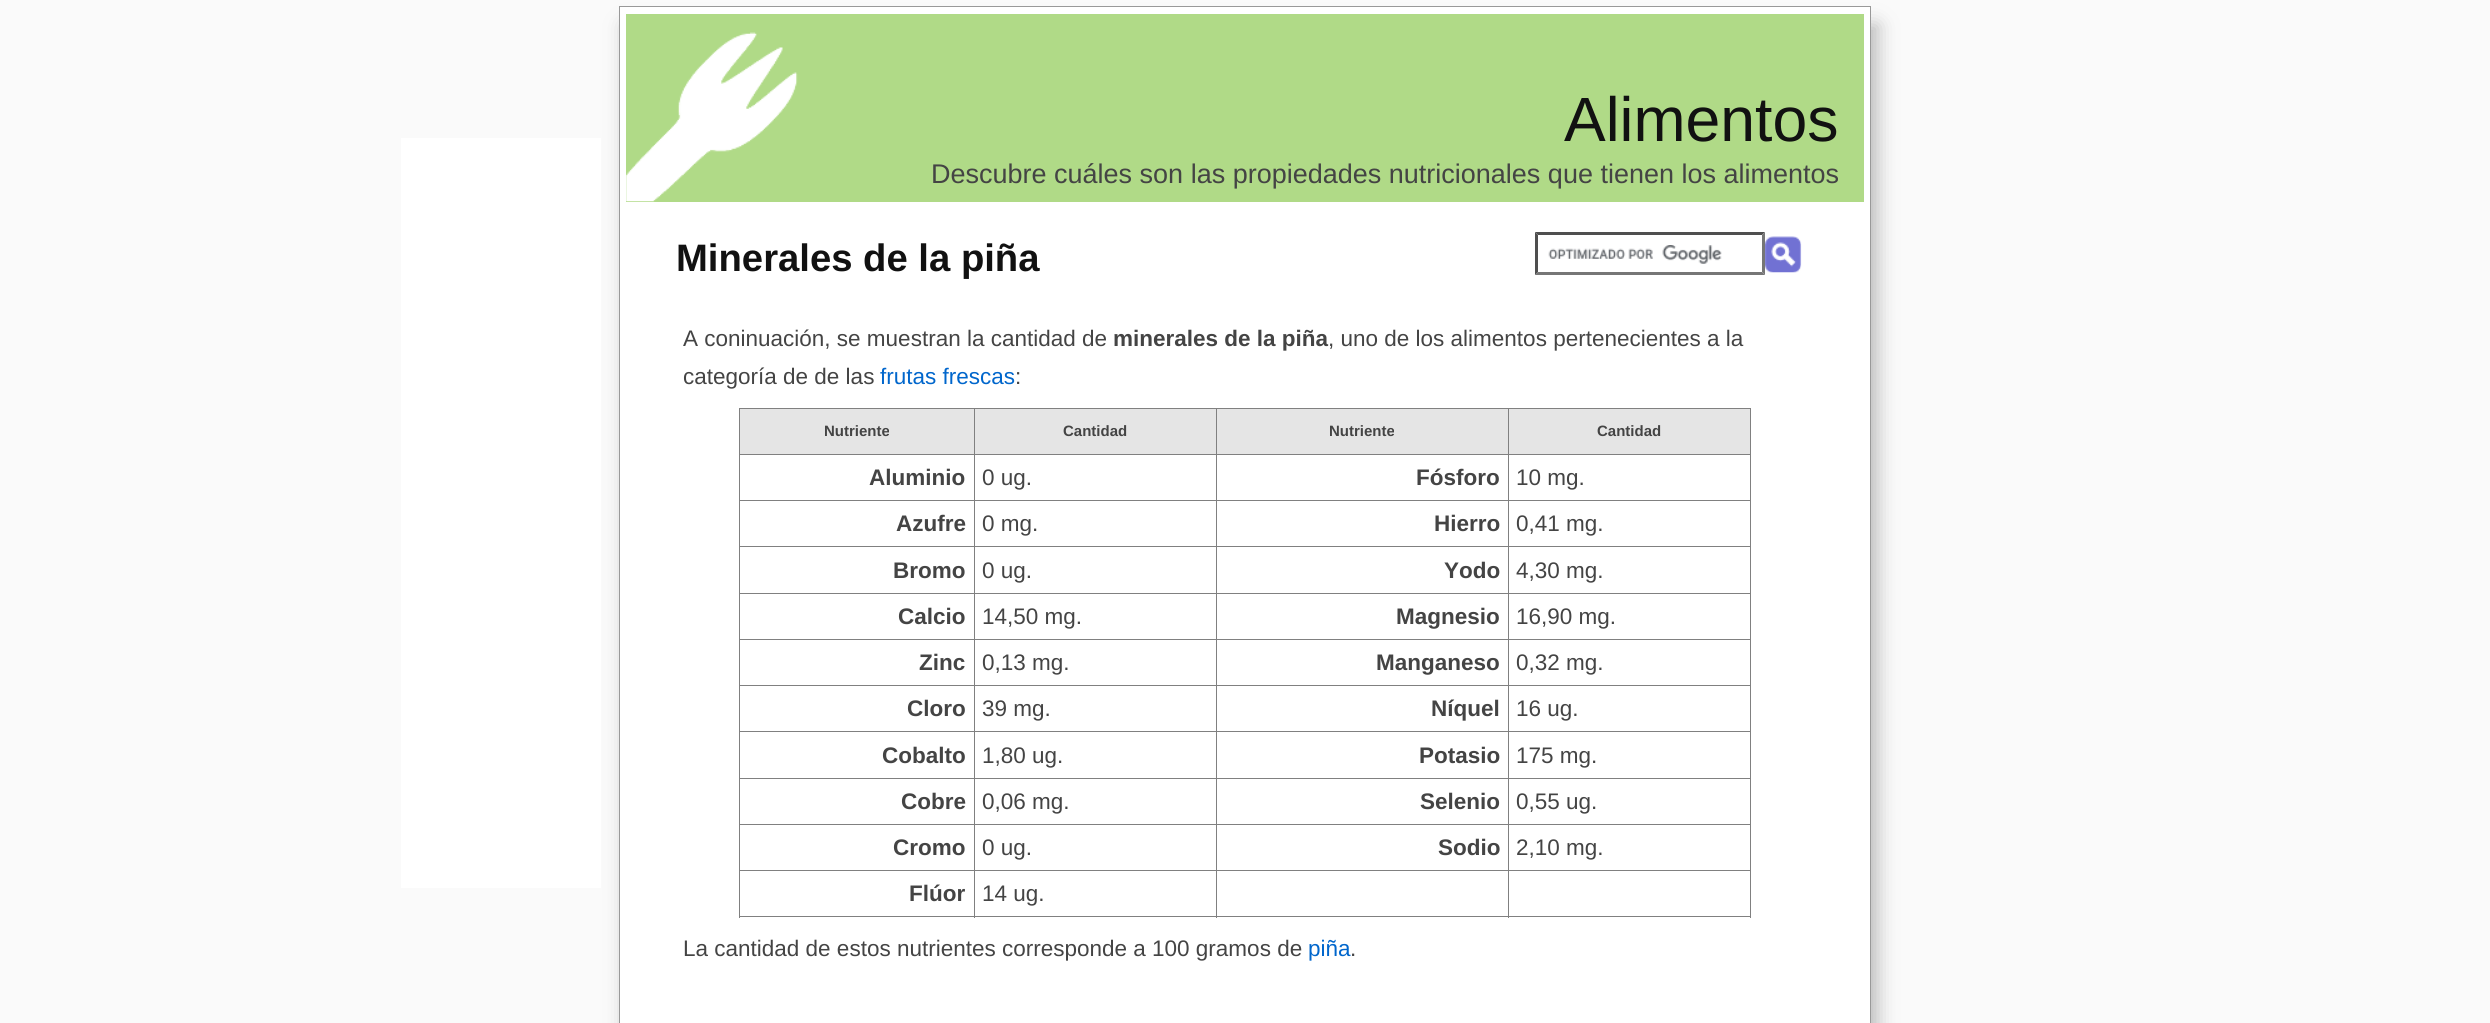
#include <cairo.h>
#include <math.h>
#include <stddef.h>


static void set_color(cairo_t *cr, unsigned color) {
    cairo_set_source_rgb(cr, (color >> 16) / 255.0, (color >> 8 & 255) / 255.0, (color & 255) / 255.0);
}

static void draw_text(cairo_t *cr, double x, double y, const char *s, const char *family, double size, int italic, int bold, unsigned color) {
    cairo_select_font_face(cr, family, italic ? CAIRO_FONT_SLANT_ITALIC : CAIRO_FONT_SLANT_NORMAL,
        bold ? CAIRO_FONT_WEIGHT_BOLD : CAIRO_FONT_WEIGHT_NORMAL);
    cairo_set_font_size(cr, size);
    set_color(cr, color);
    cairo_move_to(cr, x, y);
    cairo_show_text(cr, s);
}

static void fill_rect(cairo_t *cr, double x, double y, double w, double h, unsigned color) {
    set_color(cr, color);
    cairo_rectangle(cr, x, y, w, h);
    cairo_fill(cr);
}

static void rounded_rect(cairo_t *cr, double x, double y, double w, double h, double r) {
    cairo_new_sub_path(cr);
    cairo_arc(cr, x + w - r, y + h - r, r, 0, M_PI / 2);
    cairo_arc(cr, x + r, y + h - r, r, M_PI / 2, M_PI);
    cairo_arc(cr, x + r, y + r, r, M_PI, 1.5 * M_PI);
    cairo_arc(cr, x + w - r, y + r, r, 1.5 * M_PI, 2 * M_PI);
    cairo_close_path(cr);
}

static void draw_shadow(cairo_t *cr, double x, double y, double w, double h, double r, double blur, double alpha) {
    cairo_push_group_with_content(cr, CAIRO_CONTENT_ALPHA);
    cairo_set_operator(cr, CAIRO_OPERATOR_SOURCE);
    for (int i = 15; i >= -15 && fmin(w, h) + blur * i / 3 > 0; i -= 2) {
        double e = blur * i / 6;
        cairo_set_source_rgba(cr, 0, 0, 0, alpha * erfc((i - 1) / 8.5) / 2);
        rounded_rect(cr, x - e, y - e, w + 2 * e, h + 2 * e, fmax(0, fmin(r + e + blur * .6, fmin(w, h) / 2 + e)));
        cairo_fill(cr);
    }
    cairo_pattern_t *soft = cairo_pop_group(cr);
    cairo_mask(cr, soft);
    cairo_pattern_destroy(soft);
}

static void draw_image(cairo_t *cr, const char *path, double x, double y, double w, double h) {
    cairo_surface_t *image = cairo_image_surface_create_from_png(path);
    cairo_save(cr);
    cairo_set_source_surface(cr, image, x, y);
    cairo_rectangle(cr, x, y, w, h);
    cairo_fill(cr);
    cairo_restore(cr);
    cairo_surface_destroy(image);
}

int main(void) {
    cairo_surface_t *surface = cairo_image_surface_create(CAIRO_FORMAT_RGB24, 2490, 1023);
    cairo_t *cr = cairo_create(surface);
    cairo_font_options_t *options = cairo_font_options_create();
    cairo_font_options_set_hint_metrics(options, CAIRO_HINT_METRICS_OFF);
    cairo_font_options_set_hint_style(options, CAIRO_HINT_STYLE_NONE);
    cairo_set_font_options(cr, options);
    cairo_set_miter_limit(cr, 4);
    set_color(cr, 0xFAFAFA);
    cairo_paint(cr);
    set_color(cr, 0xBBBBBB);
    draw_shadow(cr, 625, 25, 1253, 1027, 0, 9.5, 1);
    set_color(cr, 0xFFFFFF);
    cairo_rectangle(cr, 619.5, 6.5, 1251, 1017);
    cairo_fill_preserve(cr);
    set_color(cr, 0x999999);
    cairo_set_line_width(cr, 1);
    cairo_stroke(cr);
    fill_rect(cr, 626, 14, 1238, 188, 0xB0DA87);
    draw_image(cr, "assets/img1.png", 626, 32, 172, 170);
    draw_text(cr, 1564, 141, "Alimentos", "Liberation Sans", 62.5, 0, 0, 0x111111);
    draw_text(cr, 931, 183, "Descubre cuáles son las propiedades nutricionales que tienen los alimentos", "Liberation Sans", 27, 0, 0, 0x444444);
    draw_image(cr, "assets/img2.png", 1548, 245, 174, 19);
    set_color(cr, 0x4F4F4F);
    cairo_new_path(cr);
    cairo_move_to(cr, 1535, 232);
    cairo_line_to(cr, 1765, 232);
    cairo_line_to(cr, 1762, 235);
    cairo_line_to(cr, 1538, 235);
    cairo_close_path(cr);
    cairo_fill(cr);
    set_color(cr, 0x767676);
    cairo_new_path(cr);
    cairo_move_to(cr, 1765, 232);
    cairo_line_to(cr, 1765, 275);
    cairo_line_to(cr, 1762, 272);
    cairo_line_to(cr, 1762, 235);
    cairo_close_path(cr);
    cairo_fill(cr);
    cairo_new_path(cr);
    cairo_move_to(cr, 1765, 275);
    cairo_line_to(cr, 1535, 275);
    cairo_line_to(cr, 1538, 272);
    cairo_line_to(cr, 1762, 272);
    cairo_close_path(cr);
    cairo_fill(cr);
    set_color(cr, 0x4F4F4F);
    cairo_new_path(cr);
    cairo_move_to(cr, 1535, 275);
    cairo_line_to(cr, 1535, 232);
    cairo_line_to(cr, 1538, 235);
    cairo_line_to(cr, 1538, 272);
    cairo_close_path(cr);
    cairo_fill(cr);
    draw_image(cr, "assets/img3.png", 1765, 236, 37, 37);
    fill_rect(cr, 401, 138, 200, 750, 0xFFFFFF);
    draw_text(cr, 683, 346, "A coninuación, se muestran la cantidad de", "Liberation Sans", 22.5, 0, 0, 0x444444);
    draw_text(cr, 1113, 346, "minerales de la piña", "Liberation Sans", 22.5, 0, 1, 0x444444);
    draw_text(cr, 1328, 346, ", uno de los alimentos pertenecientes a la", "Liberation Sans", 22.5, 0, 0, 0x444444);
    draw_text(cr, 683, 384, "categoría de de las", "Liberation Sans", 22.5, 0, 0, 0x444444);
    draw_text(cr, 880, 384, "frutas frescas", "Liberation Sans", 22.5, 0, 0, 0x0066CC);
    draw_text(cr, 1015, 384, ":", "Liberation Sans", 22.5, 0, 0, 0x444444);
    fill_rect(cr, 740, 409, 234, 45, 0xE5E5E5);
    fill_rect(cr, 1508, 408, 243, 1, 0x808080);
    fill_rect(cr, 1508, 454, 243, 1, 0x808080);
    fill_rect(cr, 1508, 500, 243, 1, 0x808080);
    fill_rect(cr, 1508, 546, 243, 1, 0x808080);
    fill_rect(cr, 1508, 593, 243, 1, 0x808080);
    fill_rect(cr, 1508, 639, 243, 1, 0x808080);
    fill_rect(cr, 1508, 685, 243, 1, 0x808080);
    fill_rect(cr, 1508, 731, 243, 1, 0x808080);
    fill_rect(cr, 1508, 778, 243, 1, 0x808080);
    fill_rect(cr, 1508, 824, 243, 1, 0x808080);
    fill_rect(cr, 1508, 870, 243, 1, 0x808080);
    fill_rect(cr, 1750, 870, 1, 48, 0x808080);
    fill_rect(cr, 1508, 916, 243, 1, 0x808080);
    fill_rect(cr, 1508, 870, 1, 48, 0x808080);
    fill_rect(cr, 1216, 870, 293, 1, 0x808080);
    fill_rect(cr, 1508, 824, 1, 47, 0x808080);
    fill_rect(cr, 1216, 824, 293, 1, 0x808080);
    fill_rect(cr, 1508, 778, 1, 47, 0x808080);
    fill_rect(cr, 1216, 778, 293, 1, 0x808080);
    fill_rect(cr, 1508, 731, 1, 48, 0x808080);
    fill_rect(cr, 1216, 731, 293, 1, 0x808080);
    fill_rect(cr, 1508, 685, 1, 48, 0x808080);
    fill_rect(cr, 1216, 685, 293, 1, 0x808080);
    fill_rect(cr, 1508, 639, 1, 47, 0x808080);
    fill_rect(cr, 1216, 639, 293, 1, 0x808080);
    fill_rect(cr, 1508, 593, 1, 47, 0x808080);
    fill_rect(cr, 1216, 593, 293, 1, 0x808080);
    fill_rect(cr, 1508, 546, 1, 48, 0x808080);
    fill_rect(cr, 1216, 546, 293, 1, 0x808080);
    fill_rect(cr, 1508, 500, 1, 48, 0x808080);
    fill_rect(cr, 1216, 500, 293, 1, 0x808080);
    fill_rect(cr, 1508, 454, 1, 47, 0x808080);
    fill_rect(cr, 1216, 454, 293, 1, 0x808080);
    fill_rect(cr, 1508, 408, 1, 47, 0x808080);
    fill_rect(cr, 1216, 408, 293, 1, 0x808080);
    fill_rect(cr, 1216, 916, 293, 1, 0x808080);
    fill_rect(cr, 1216, 870, 1, 48, 0x808080);
    fill_rect(cr, 974, 870, 244, 1, 0x808080);
    fill_rect(cr, 1216, 824, 1, 47, 0x808080);
    fill_rect(cr, 974, 824, 244, 1, 0x808080);
    fill_rect(cr, 1216, 778, 1, 47, 0x808080);
    fill_rect(cr, 974, 778, 244, 1, 0x808080);
    fill_rect(cr, 1216, 731, 1, 48, 0x808080);
    fill_rect(cr, 974, 731, 244, 1, 0x808080);
    fill_rect(cr, 1216, 685, 1, 48, 0x808080);
    fill_rect(cr, 974, 685, 244, 1, 0x808080);
    fill_rect(cr, 1216, 639, 1, 47, 0x808080);
    fill_rect(cr, 974, 639, 244, 1, 0x808080);
    fill_rect(cr, 1216, 593, 1, 47, 0x808080);
    fill_rect(cr, 974, 593, 244, 1, 0x808080);
    fill_rect(cr, 1216, 546, 1, 48, 0x808080);
    fill_rect(cr, 974, 546, 244, 1, 0x808080);
    fill_rect(cr, 1216, 500, 1, 48, 0x808080);
    fill_rect(cr, 974, 500, 244, 1, 0x808080);
    fill_rect(cr, 1216, 454, 1, 47, 0x808080);
    fill_rect(cr, 974, 454, 244, 1, 0x808080);
    fill_rect(cr, 1216, 408, 1, 47, 0x808080);
    fill_rect(cr, 974, 408, 244, 1, 0x808080);
    fill_rect(cr, 974, 916, 244, 1, 0x808080);
    fill_rect(cr, 974, 870, 1, 48, 0x808080);
    fill_rect(cr, 739, 870, 236, 1, 0x808080);
    fill_rect(cr, 974, 824, 1, 47, 0x808080);
    fill_rect(cr, 739, 824, 236, 1, 0x808080);
    fill_rect(cr, 974, 778, 1, 47, 0x808080);
    fill_rect(cr, 739, 778, 236, 1, 0x808080);
    fill_rect(cr, 974, 731, 1, 48, 0x808080);
    fill_rect(cr, 739, 731, 236, 1, 0x808080);
    fill_rect(cr, 974, 685, 1, 48, 0x808080);
    fill_rect(cr, 739, 685, 236, 1, 0x808080);
    fill_rect(cr, 974, 639, 1, 47, 0x808080);
    fill_rect(cr, 739, 639, 236, 1, 0x808080);
    fill_rect(cr, 974, 593, 1, 47, 0x808080);
    fill_rect(cr, 739, 593, 236, 1, 0x808080);
    fill_rect(cr, 974, 546, 1, 48, 0x808080);
    fill_rect(cr, 739, 546, 236, 1, 0x808080);
    fill_rect(cr, 974, 500, 1, 48, 0x808080);
    fill_rect(cr, 739, 500, 236, 1, 0x808080);
    fill_rect(cr, 974, 454, 1, 47, 0x808080);
    fill_rect(cr, 739, 454, 236, 1, 0x808080);
    fill_rect(cr, 974, 408, 1, 47, 0x808080);
    fill_rect(cr, 739, 408, 236, 1, 0x808080);
    fill_rect(cr, 739, 916, 236, 1, 0x808080);
    fill_rect(cr, 739, 870, 1, 48, 0x808080);
    fill_rect(cr, 739, 824, 1, 47, 0x808080);
    fill_rect(cr, 739, 778, 1, 47, 0x808080);
    fill_rect(cr, 739, 731, 1, 48, 0x808080);
    fill_rect(cr, 739, 685, 1, 48, 0x808080);
    fill_rect(cr, 739, 639, 1, 47, 0x808080);
    fill_rect(cr, 739, 593, 1, 47, 0x808080);
    fill_rect(cr, 739, 546, 1, 48, 0x808080);
    fill_rect(cr, 739, 500, 1, 48, 0x808080);
    fill_rect(cr, 739, 454, 1, 47, 0x808080);
    fill_rect(cr, 739, 408, 1, 47, 0x808080);
    draw_text(cr, 824, 436, "Nutriente", "Liberation Sans", 15, 0, 1, 0x444444);
    fill_rect(cr, 975, 409, 241, 45, 0xE5E5E5);
    draw_text(cr, 1063, 436, "Cantidad", "Liberation Sans", 15, 0, 1, 0x444444);
    fill_rect(cr, 1217, 409, 291, 45, 0xE5E5E5);
    draw_text(cr, 1329, 436, "Nutriente", "Liberation Sans", 15, 0, 1, 0x444444);
    fill_rect(cr, 1509, 409, 241, 45, 0xE5E5E5);
    fill_rect(cr, 1750, 824, 1, 47, 0x808080);
    fill_rect(cr, 1750, 778, 1, 47, 0x808080);
    fill_rect(cr, 1750, 731, 1, 48, 0x808080);
    fill_rect(cr, 1750, 685, 1, 48, 0x808080);
    fill_rect(cr, 1750, 639, 1, 47, 0x808080);
    fill_rect(cr, 1750, 593, 1, 47, 0x808080);
    fill_rect(cr, 1750, 546, 1, 48, 0x808080);
    fill_rect(cr, 1750, 500, 1, 48, 0x808080);
    fill_rect(cr, 1750, 454, 1, 47, 0x808080);
    fill_rect(cr, 1750, 408, 1, 47, 0x808080);
    draw_text(cr, 1597, 436, "Cantidad", "Liberation Sans", 15, 0, 1, 0x444444);
    draw_text(cr, 869, 485, "Aluminio", "Liberation Sans", 22.5, 0, 1, 0x444444);
    draw_text(cr, 982, 485, "0 ug.", "Liberation Sans", 22.5, 0, 0, 0x444444);
    draw_text(cr, 1416, 485, "Fósforo", "Liberation Sans", 22.5, 0, 1, 0x444444);
    draw_text(cr, 1516, 485, "10 mg.", "Liberation Sans", 22.5, 0, 0, 0x444444);
    draw_text(cr, 896, 531, "Azufre", "Liberation Sans", 22.5, 0, 1, 0x444444);
    draw_text(cr, 982, 531, "0 mg.", "Liberation Sans", 22.5, 0, 0, 0x444444);
    draw_text(cr, 1434, 531, "Hierro", "Liberation Sans", 22.5, 0, 1, 0x444444);
    draw_text(cr, 1516, 531, "0,41 mg.", "Liberation Sans", 22.5, 0, 0, 0x444444);
    draw_text(cr, 893, 578, "Bromo", "Liberation Sans", 22.5, 0, 1, 0x444444);
    draw_text(cr, 982, 578, "0 ug.", "Liberation Sans", 22.5, 0, 0, 0x444444);
    draw_text(cr, 1444, 578, "Yodo", "Liberation Sans", 22.5, 0, 1, 0x444444);
    draw_text(cr, 1516, 578, "4,30 mg.", "Liberation Sans", 22.5, 0, 0, 0x444444);
    draw_text(cr, 898, 624, "Calcio", "Liberation Sans", 22.5, 0, 1, 0x444444);
    draw_text(cr, 982, 624, "14,50 mg.", "Liberation Sans", 22.5, 0, 0, 0x444444);
    draw_text(cr, 1396, 624, "Magnesio", "Liberation Sans", 22.5, 0, 1, 0x444444);
    draw_text(cr, 1516, 624, "16,90 mg.", "Liberation Sans", 22.5, 0, 0, 0x444444);
    draw_text(cr, 919, 670, "Zinc", "Liberation Sans", 22.5, 0, 1, 0x444444);
    draw_text(cr, 982, 670, "0,13 mg.", "Liberation Sans", 22.5, 0, 0, 0x444444);
    draw_text(cr, 1376, 670, "Manganeso", "Liberation Sans", 22.5, 0, 1, 0x444444);
    draw_text(cr, 1516, 670, "0,32 mg.", "Liberation Sans", 22.5, 0, 0, 0x444444);
    draw_text(cr, 907, 716, "Cloro", "Liberation Sans", 22.5, 0, 1, 0x444444);
    draw_text(cr, 982, 716, "39 mg.", "Liberation Sans", 22.5, 0, 0, 0x444444);
    draw_text(cr, 1431, 716, "Níquel", "Liberation Sans", 22.5, 0, 1, 0x444444);
    draw_text(cr, 1516, 716, "16 ug.", "Liberation Sans", 22.5, 0, 0, 0x444444);
    draw_text(cr, 882, 763, "Cobalto", "Liberation Sans", 22.5, 0, 1, 0x444444);
    draw_text(cr, 982, 763, "1,80 ug.", "Liberation Sans", 22.5, 0, 0, 0x444444);
    draw_text(cr, 1419, 763, "Potasio", "Liberation Sans", 22.5, 0, 1, 0x444444);
    draw_text(cr, 1516, 763, "175 mg.", "Liberation Sans", 22.5, 0, 0, 0x444444);
    draw_text(cr, 901, 809, "Cobre", "Liberation Sans", 22.5, 0, 1, 0x444444);
    draw_text(cr, 982, 809, "0,06 mg.", "Liberation Sans", 22.5, 0, 0, 0x444444);
    draw_text(cr, 1420, 809, "Selenio", "Liberation Sans", 22.5, 0, 1, 0x444444);
    draw_text(cr, 1516, 809, "0,55 ug.", "Liberation Sans", 22.5, 0, 0, 0x444444);
    draw_text(cr, 893, 855, "Cromo", "Liberation Sans", 22.5, 0, 1, 0x444444);
    draw_text(cr, 982, 855, "0 ug.", "Liberation Sans", 22.5, 0, 0, 0x444444);
    draw_text(cr, 1438, 855, "Sodio", "Liberation Sans", 22.5, 0, 1, 0x444444);
    draw_text(cr, 1516, 855, "2,10 mg.", "Liberation Sans", 22.5, 0, 0, 0x444444);
    draw_text(cr, 909, 901, "Flúor", "Liberation Sans", 22.5, 0, 1, 0x444444);
    draw_text(cr, 982, 901, "14 ug.", "Liberation Sans", 22.5, 0, 0, 0x444444);
    draw_text(cr, 683, 956, "La cantidad de estos nutrientes corresponde a 100 gramos de", "Liberation Sans", 22.5, 0, 0, 0x444444);
    draw_text(cr, 1308, 956, "piña", "Liberation Sans", 22.5, 0, 0, 0x0066CC);
    draw_text(cr, 1350, 956, ".", "Liberation Sans", 22.5, 0, 0, 0x444444);
    draw_text(cr, 676, 271, "Minerales de la piña", "Liberation Sans", 38.25, 0, 1, 0x111111);
    cairo_surface_write_to_png(surface, "output.png");
    cairo_font_options_destroy(options);
    cairo_destroy(cr);
    cairo_surface_destroy(surface);
    return 0;
}
